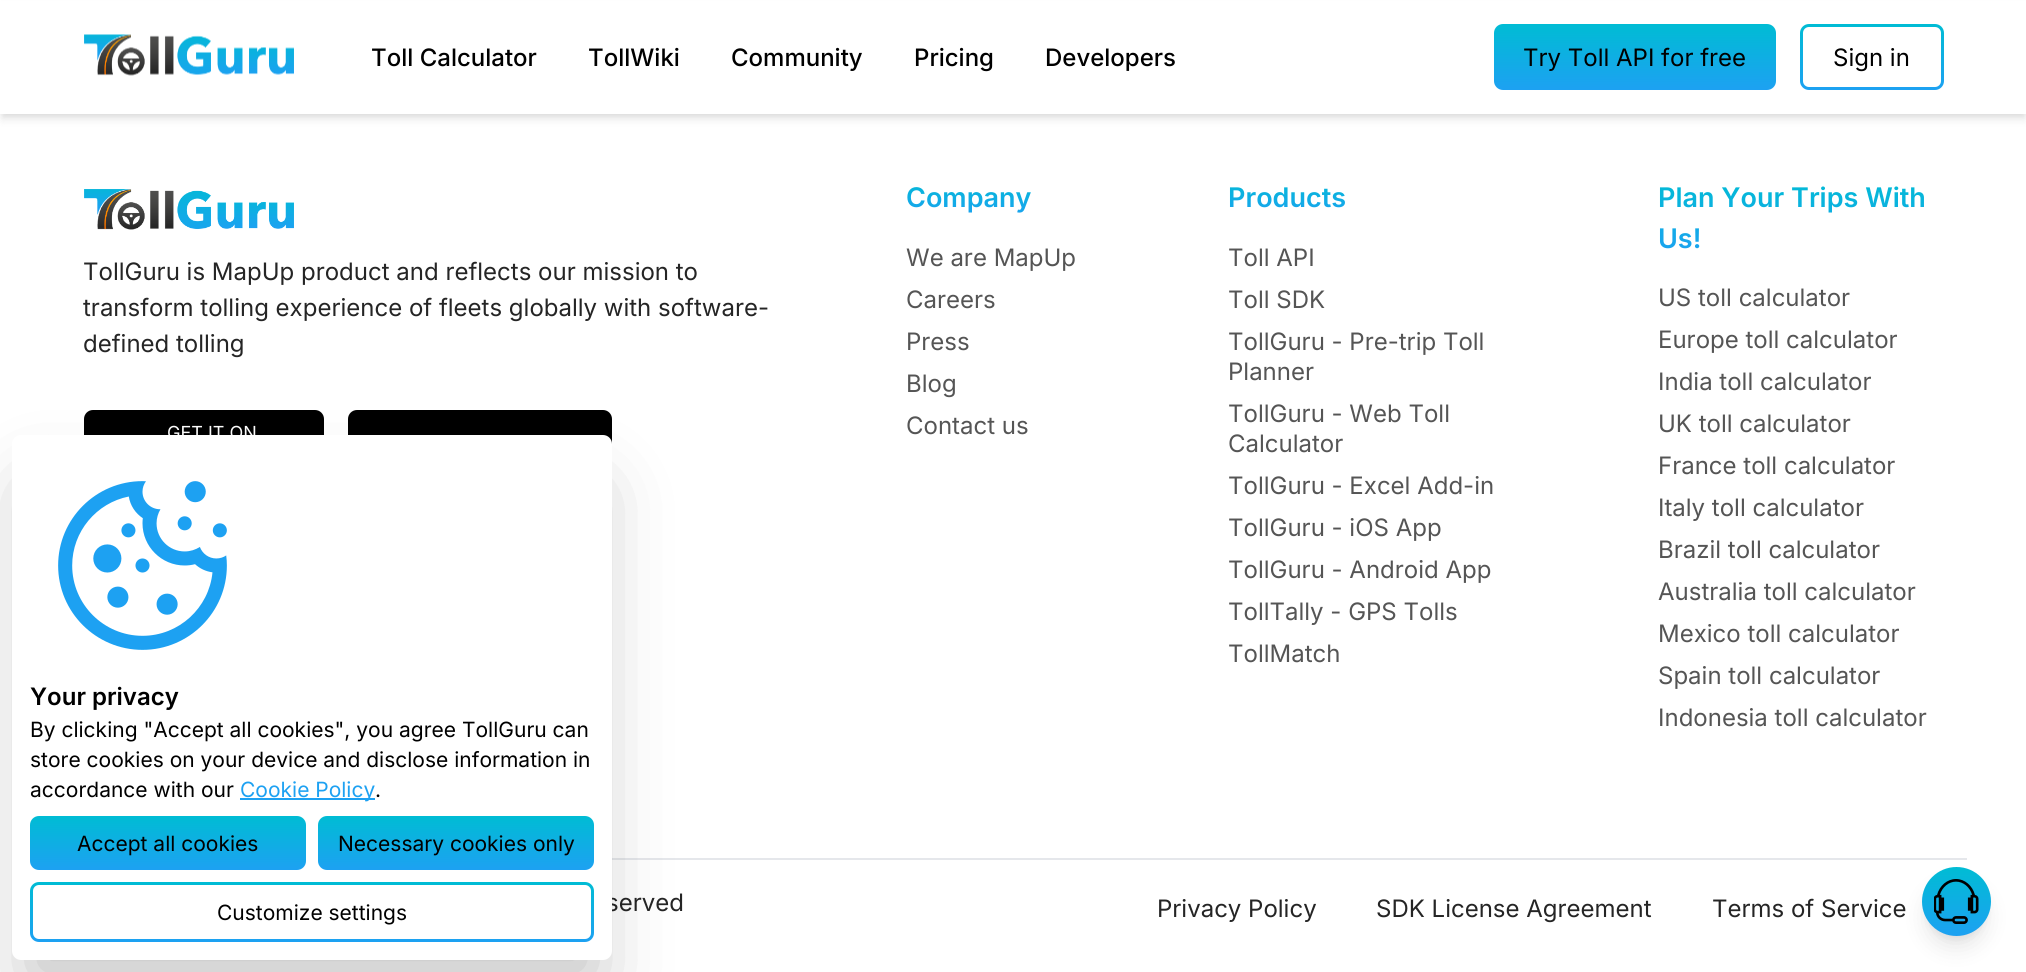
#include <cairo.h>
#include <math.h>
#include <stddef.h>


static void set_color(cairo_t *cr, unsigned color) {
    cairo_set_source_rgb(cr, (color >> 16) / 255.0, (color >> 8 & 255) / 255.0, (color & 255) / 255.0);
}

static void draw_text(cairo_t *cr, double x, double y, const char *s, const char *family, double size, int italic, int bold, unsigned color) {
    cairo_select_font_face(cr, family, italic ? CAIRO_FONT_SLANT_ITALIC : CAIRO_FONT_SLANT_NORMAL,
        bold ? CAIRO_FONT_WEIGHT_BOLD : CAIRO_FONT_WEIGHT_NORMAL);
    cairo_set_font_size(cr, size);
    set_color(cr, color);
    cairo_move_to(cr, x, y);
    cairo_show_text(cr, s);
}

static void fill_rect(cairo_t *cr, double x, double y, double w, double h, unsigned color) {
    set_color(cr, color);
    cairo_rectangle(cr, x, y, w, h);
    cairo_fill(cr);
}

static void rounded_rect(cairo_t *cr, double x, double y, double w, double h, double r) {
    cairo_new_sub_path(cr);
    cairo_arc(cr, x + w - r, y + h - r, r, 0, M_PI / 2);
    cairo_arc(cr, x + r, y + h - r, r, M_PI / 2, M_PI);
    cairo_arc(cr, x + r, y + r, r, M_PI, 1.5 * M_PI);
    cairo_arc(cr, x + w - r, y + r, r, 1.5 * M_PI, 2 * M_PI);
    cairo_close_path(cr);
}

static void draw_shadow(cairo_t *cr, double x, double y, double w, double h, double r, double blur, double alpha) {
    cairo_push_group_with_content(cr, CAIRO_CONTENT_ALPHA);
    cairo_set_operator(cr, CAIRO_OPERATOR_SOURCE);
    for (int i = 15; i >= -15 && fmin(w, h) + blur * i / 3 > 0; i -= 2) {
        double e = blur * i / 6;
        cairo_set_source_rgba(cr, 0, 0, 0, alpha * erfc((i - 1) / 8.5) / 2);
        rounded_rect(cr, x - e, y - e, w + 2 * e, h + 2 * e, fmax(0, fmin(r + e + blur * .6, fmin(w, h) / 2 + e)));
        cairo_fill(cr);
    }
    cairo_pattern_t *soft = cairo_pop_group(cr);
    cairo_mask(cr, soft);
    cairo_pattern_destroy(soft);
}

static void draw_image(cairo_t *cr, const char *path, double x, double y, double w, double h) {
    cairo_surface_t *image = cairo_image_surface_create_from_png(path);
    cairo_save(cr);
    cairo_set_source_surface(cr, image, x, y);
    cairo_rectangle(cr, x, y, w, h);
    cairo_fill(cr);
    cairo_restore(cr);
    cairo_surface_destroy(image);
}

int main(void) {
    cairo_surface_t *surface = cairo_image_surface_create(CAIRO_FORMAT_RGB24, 2026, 972);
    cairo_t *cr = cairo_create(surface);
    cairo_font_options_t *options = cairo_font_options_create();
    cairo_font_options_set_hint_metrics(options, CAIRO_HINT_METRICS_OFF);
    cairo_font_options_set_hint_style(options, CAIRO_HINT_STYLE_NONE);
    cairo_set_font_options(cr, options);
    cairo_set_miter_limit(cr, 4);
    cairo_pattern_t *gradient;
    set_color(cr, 0xFFFFFF);
    cairo_paint(cr);
    set_color(cr, 0x000000);
    draw_shadow(cr, 3, 6, 2021, 108, 0, 3, 0.1);
    draw_shadow(cr, 2, 8, 2023, 111, 0, 4.5, 0.1);
    fill_rect(cr, 0, 1, 2026, 113, 0xFFFFFF);
    draw_image(cr, "assets/img1.png", 84, 34, 210, 42);
    draw_text(cr, 371, 66, "Toll Calculator", "Inter Medium", 24, 0, 0, 0x000000);
    draw_text(cr, 588, 66, "TollWiki", "Inter Medium", 24, 0, 0, 0x000000);
    draw_text(cr, 731, 66, "Community", "Inter Medium", 24, 0, 0, 0x000000);
    draw_text(cr, 914, 66, "Pricing", "Inter Medium", 24, 0, 0, 0x000000);
    draw_text(cr, 1045, 66, "Developers", "Inter Medium", 24, 0, 0, 0x000000);
    gradient = cairo_pattern_create_linear(1635, 90, 1635, 24);
    cairo_pattern_add_color_stop_rgba(gradient, 0, 0.114, 0.631, 0.949, 1);
    cairo_pattern_add_color_stop_rgba(gradient, 1, 0, 0.737, 0.831, 1);
    cairo_set_source(cr, gradient);
    cairo_pattern_destroy(gradient);
    rounded_rect(cr, 1494, 24, 282, 66, 9);
    cairo_fill(cr);
    draw_text(cr, 1523, 66, "Try Toll API for free", "Inter", 24, 0, 0, 0x000000);
    gradient = cairo_pattern_create_linear(1872, 90, 1872, 24);
    cairo_pattern_add_color_stop_rgba(gradient, 0, 0.114, 0.631, 0.949, 1);
    cairo_pattern_add_color_stop_rgba(gradient, 1, 0, 0.737, 0.831, 1);
    cairo_set_source(cr, gradient);
    cairo_pattern_destroy(gradient);
    rounded_rect(cr, 1800, 24, 144, 66, 9);
    cairo_fill(cr);
    set_color(cr, 0xFFFFFF);
    rounded_rect(cr, 1803, 27, 138, 60, 6);
    cairo_fill(cr);
    draw_text(cr, 1833, 66, "Sign in", "Inter", 24, 0, 0, 0x000000);
    draw_image(cr, "assets/img2.png", 84, 189, 210, 41);
    draw_text(cr, 83, 280, "TollGuru is MapUp product and reflects our mission to", "Inter", 24, 0, 0, 0x252525);
    draw_text(cr, 83, 316, "transform tolling experience of fleets globally with software-", "Inter", 24, 0, 0, 0x252525);
    draw_text(cr, 83, 352, "defined tolling", "Inter", 24, 0, 0, 0x252525);
    set_color(cr, 0x000000);
    rounded_rect(cr, 84, 410, 240, 78, 9);
    cairo_fill(cr);
    draw_text(cr, 167, 439, "GET IT ON", "Inter", 18, 0, 0, 0xFFFFFF);
    set_color(cr, 0x000000);
    rounded_rect(cr, 348, 410, 264, 78, 9);
    cairo_fill(cr);
    cairo_select_font_face(cr, "Inter SemiBold", CAIRO_FONT_SLANT_NORMAL, CAIRO_FONT_WEIGHT_NORMAL);
    cairo_set_font_size(cr, 27);
    gradient = cairo_pattern_create_linear(969, 218, 969, 177);
    cairo_pattern_add_color_stop_rgba(gradient, 0, 0.114, 0.631, 0.949, 1);
    cairo_pattern_add_color_stop_rgba(gradient, 1, 0, 0.737, 0.831, 1);
    cairo_set_source(cr, gradient);
    cairo_pattern_destroy(gradient);
    cairo_move_to(cr, 906, 207);
    cairo_show_text(cr, "Company");
    draw_text(cr, 906, 266, "We are MapUp", "Inter", 24, 0, 0, 0x555555);
    draw_text(cr, 906, 308, "Careers", "Inter", 24, 0, 0, 0x555555);
    draw_text(cr, 906, 350, "Press", "Inter", 24, 0, 0, 0x555555);
    draw_text(cr, 906, 392, "Blog", "Inter", 24, 0, 0, 0x555555);
    draw_text(cr, 906, 434, "Contact us", "Inter", 24, 0, 0, 0x555555);
    cairo_select_font_face(cr, "Inter SemiBold", CAIRO_FONT_SLANT_NORMAL, CAIRO_FONT_WEIGHT_NORMAL);
    cairo_set_font_size(cr, 27);
    gradient = cairo_pattern_create_linear(1287, 218, 1287, 177);
    cairo_pattern_add_color_stop_rgba(gradient, 0, 0.114, 0.631, 0.949, 1);
    cairo_pattern_add_color_stop_rgba(gradient, 1, 0, 0.737, 0.831, 1);
    cairo_set_source(cr, gradient);
    cairo_pattern_destroy(gradient);
    cairo_move_to(cr, 1228, 207);
    cairo_show_text(cr, "Products");
    draw_text(cr, 1228, 266, "Toll API", "Inter", 24, 0, 0, 0x555555);
    draw_text(cr, 1228, 308, "Toll SDK", "Inter", 24, 0, 0, 0x555555);
    draw_text(cr, 1228, 350, "TollGuru - Pre-trip Toll", "Inter", 24, 0, 0, 0x555555);
    draw_text(cr, 1228, 380, "Planner", "Inter", 24, 0, 0, 0x555555);
    draw_text(cr, 1228, 422, "TollGuru - Web Toll", "Inter", 24, 0, 0, 0x555555);
    draw_text(cr, 1228, 452, "Calculator", "Inter", 24, 0, 0, 0x555555);
    draw_text(cr, 1228, 494, "TollGuru - Excel Add-in", "Inter", 24, 0, 0, 0x555555);
    draw_text(cr, 1228, 536, "TollGuru - iOS App", "Inter", 24, 0, 0, 0x555555);
    draw_text(cr, 1228, 578, "TollGuru - Android App", "Inter", 24, 0, 0, 0x555555);
    draw_text(cr, 1228, 620, "TollTally - GPS Tolls", "Inter", 24, 0, 0, 0x555555);
    draw_text(cr, 1228, 662, "TollMatch", "Inter", 24, 0, 0, 0x555555);
    cairo_select_font_face(cr, "Inter SemiBold", CAIRO_FONT_SLANT_NORMAL, CAIRO_FONT_WEIGHT_NORMAL);
    cairo_set_font_size(cr, 27);
    gradient = cairo_pattern_create_linear(1800, 258, 1800, 177);
    cairo_pattern_add_color_stop_rgba(gradient, 0, 0.114, 0.631, 0.949, 1);
    cairo_pattern_add_color_stop_rgba(gradient, 1, 0, 0.737, 0.831, 1);
    cairo_set_source(cr, gradient);
    cairo_pattern_destroy(gradient);
    cairo_move_to(cr, 1658, 207);
    cairo_show_text(cr, "Plan Your Trips With");
    cairo_move_to(cr, 1658, 248);
    cairo_show_text(cr, "Us!");
    draw_text(cr, 1658, 306, "US toll calculator", "Inter", 24, 0, 0, 0x555555);
    draw_text(cr, 1658, 348, "Europe toll calculator", "Inter", 24, 0, 0, 0x555555);
    draw_text(cr, 1658, 390, "India toll calculator", "Inter", 24, 0, 0, 0x555555);
    draw_text(cr, 1658, 432, "UK toll calculator", "Inter", 24, 0, 0, 0x555555);
    draw_text(cr, 1658, 474, "France toll calculator", "Inter", 24, 0, 0, 0x555555);
    draw_text(cr, 1658, 516, "Italy toll calculator", "Inter", 24, 0, 0, 0x555555);
    draw_text(cr, 1658, 558, "Brazil toll calculator", "Inter", 24, 0, 0, 0x555555);
    draw_text(cr, 1658, 600, "Australia toll calculator", "Inter", 24, 0, 0, 0x555555);
    draw_text(cr, 1658, 642, "Mexico toll calculator", "Inter", 24, 0, 0, 0x555555);
    draw_text(cr, 1658, 684, "Spain toll calculator", "Inter", 24, 0, 0, 0x555555);
    draw_text(cr, 1658, 726, "Indonesia toll calculator", "Inter", 24, 0, 0, 0x555555);
    fill_rect(cr, 612, 858, 1355, 2, 0xE5E7EB);
    draw_text(cr, 606, 911, "served", "Inter", 24, 0, 0, 0x252525);
    draw_text(cr, 1157, 917, "Privacy Policy", "Inter", 24, 0, 0, 0x252525);
    draw_text(cr, 1376, 917, "SDK License Agreement", "Inter", 24, 0, 0, 0x252525);
    draw_text(cr, 1712, 917, "Terms of Service", "Inter", 24, 0, 0, 0x252525);
    set_color(cr, 0x000000);
    draw_shadow(cr, 1928, 879, 57, 57, 28.5, 4.5, 0.1);
    draw_shadow(cr, 1926, 887, 60, 60, 30, 11, 0.1);
    gradient = cairo_pattern_create_linear(1956, 936, 1956, 867);
    cairo_pattern_add_color_stop_rgba(gradient, 0, 0.114, 0.631, 0.949, 1);
    cairo_pattern_add_color_stop_rgba(gradient, 1, 0, 0.737, 0.831, 1);
    cairo_set_source(cr, gradient);
    cairo_pattern_destroy(gradient);
    cairo_arc(cr, 1956.5, 901.5, 34.5, 0, 2 * M_PI);
    cairo_fill(cr);
    draw_image(cr, "assets/img3.png", 1934, 879, 45, 45);
    set_color(cr, 0x000000);
    draw_shadow(cr, 30, 491, 564, 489, 0, 37.5, 0.25);
    set_color(cr, 0xFFFFFF);
    rounded_rect(cr, 12, 435, 600, 525, 9);
    cairo_fill(cr);
    draw_image(cr, "assets/img4.png", 58, 481, 169, 169);
    draw_text(cr, 30, 705, "Your privacy", "Inter SemiBold", 24, 0, 0, 0x000000);
    draw_text(cr, 30, 737, "By clicking \"Accept all cookies\", you agree TollGuru can", "Inter", 21, 0, 0, 0x000000);
    draw_text(cr, 30, 767, "store cookies on your device and disclose information in", "Inter", 21, 0, 0, 0x000000);
    draw_text(cr, 30, 797, "accordance with our", "Inter", 21, 0, 0, 0x000000);
    fill_rect(cr, 240, 798, 135, 2, 0x1DA1F2);
    draw_text(cr, 240, 797, "Cookie Policy", "Inter", 21, 0, 0, 0x1DA1F2);
    draw_text(cr, 375, 797, ".", "Inter", 21, 0, 0, 0x000000);
    gradient = cairo_pattern_create_linear(168, 870, 168, 816);
    cairo_pattern_add_color_stop_rgba(gradient, 0, 0.114, 0.631, 0.949, 1);
    cairo_pattern_add_color_stop_rgba(gradient, 1, 0, 0.737, 0.831, 1);
    cairo_set_source(cr, gradient);
    cairo_pattern_destroy(gradient);
    rounded_rect(cr, 30, 816, 276, 54, 9);
    cairo_fill(cr);
    draw_text(cr, 77, 851, "Accept all cookies", "Inter", 21, 0, 0, 0x000000);
    gradient = cairo_pattern_create_linear(456, 870, 456, 816);
    cairo_pattern_add_color_stop_rgba(gradient, 0, 0.114, 0.631, 0.949, 1);
    cairo_pattern_add_color_stop_rgba(gradient, 1, 0, 0.737, 0.831, 1);
    cairo_set_source(cr, gradient);
    cairo_pattern_destroy(gradient);
    rounded_rect(cr, 318, 816, 276, 54, 9);
    cairo_fill(cr);
    draw_text(cr, 338, 851, "Necessary cookies only", "Inter", 21, 0, 0, 0x000000);
    gradient = cairo_pattern_create_linear(312, 942, 312, 882);
    cairo_pattern_add_color_stop_rgba(gradient, 0, 0.114, 0.631, 0.949, 1);
    cairo_pattern_add_color_stop_rgba(gradient, 1, 0, 0.737, 0.831, 1);
    cairo_set_source(cr, gradient);
    cairo_pattern_destroy(gradient);
    rounded_rect(cr, 30, 882, 564, 60, 9);
    cairo_fill(cr);
    set_color(cr, 0xFFFFFF);
    rounded_rect(cr, 33, 885, 558, 54, 6);
    cairo_fill(cr);
    draw_text(cr, 217, 920, "Customize settings", "Inter", 21, 0, 0, 0x000000);
    cairo_surface_write_to_png(surface, "output.png");
    cairo_font_options_destroy(options);
    cairo_destroy(cr);
    cairo_surface_destroy(surface);
    return 0;
}
